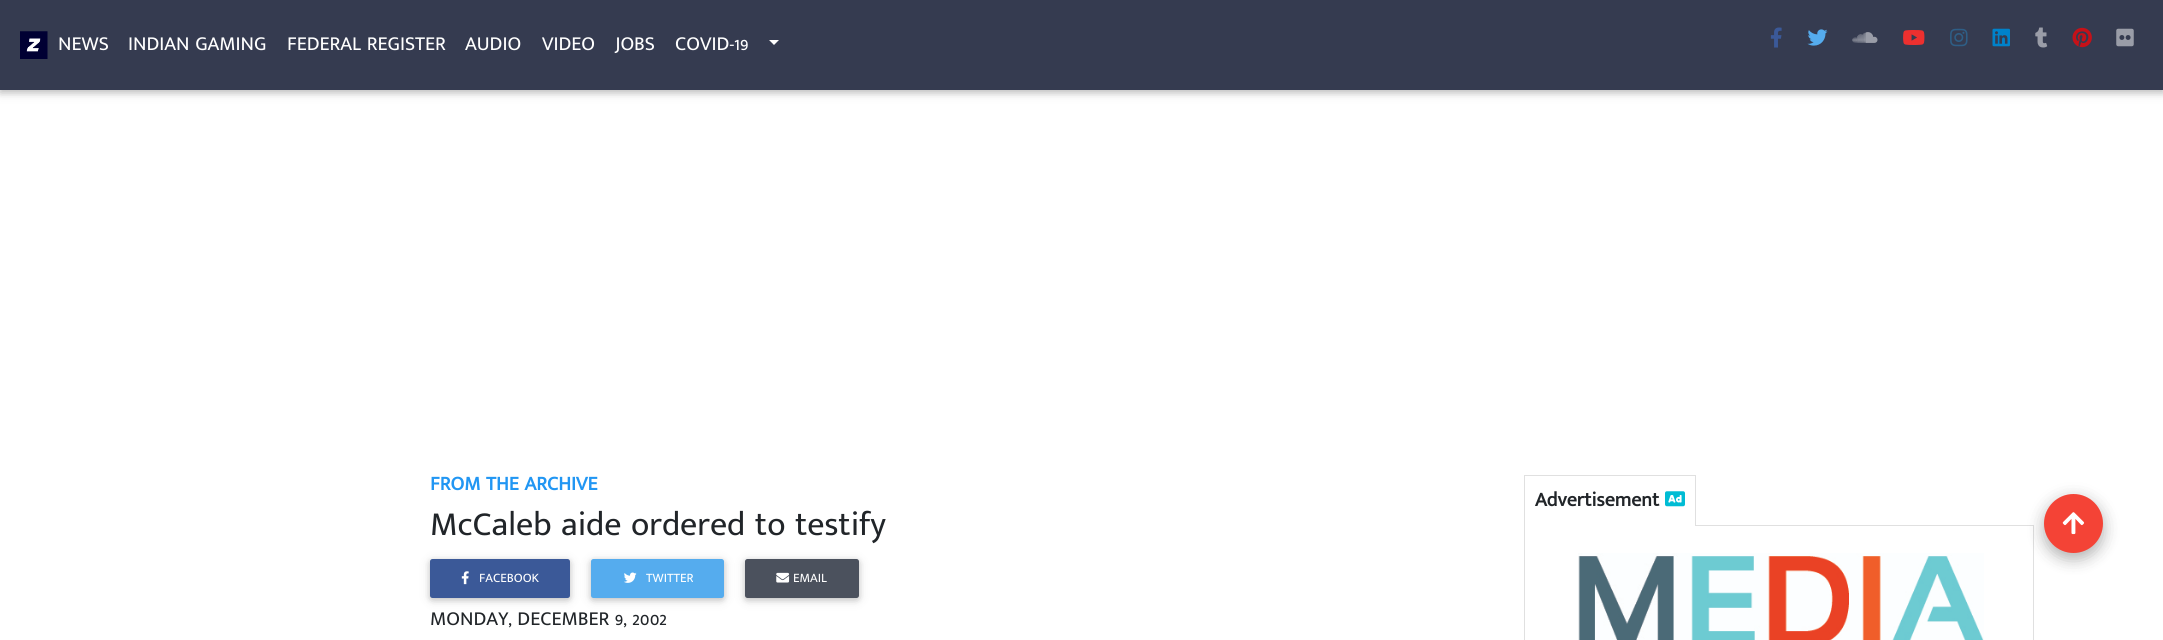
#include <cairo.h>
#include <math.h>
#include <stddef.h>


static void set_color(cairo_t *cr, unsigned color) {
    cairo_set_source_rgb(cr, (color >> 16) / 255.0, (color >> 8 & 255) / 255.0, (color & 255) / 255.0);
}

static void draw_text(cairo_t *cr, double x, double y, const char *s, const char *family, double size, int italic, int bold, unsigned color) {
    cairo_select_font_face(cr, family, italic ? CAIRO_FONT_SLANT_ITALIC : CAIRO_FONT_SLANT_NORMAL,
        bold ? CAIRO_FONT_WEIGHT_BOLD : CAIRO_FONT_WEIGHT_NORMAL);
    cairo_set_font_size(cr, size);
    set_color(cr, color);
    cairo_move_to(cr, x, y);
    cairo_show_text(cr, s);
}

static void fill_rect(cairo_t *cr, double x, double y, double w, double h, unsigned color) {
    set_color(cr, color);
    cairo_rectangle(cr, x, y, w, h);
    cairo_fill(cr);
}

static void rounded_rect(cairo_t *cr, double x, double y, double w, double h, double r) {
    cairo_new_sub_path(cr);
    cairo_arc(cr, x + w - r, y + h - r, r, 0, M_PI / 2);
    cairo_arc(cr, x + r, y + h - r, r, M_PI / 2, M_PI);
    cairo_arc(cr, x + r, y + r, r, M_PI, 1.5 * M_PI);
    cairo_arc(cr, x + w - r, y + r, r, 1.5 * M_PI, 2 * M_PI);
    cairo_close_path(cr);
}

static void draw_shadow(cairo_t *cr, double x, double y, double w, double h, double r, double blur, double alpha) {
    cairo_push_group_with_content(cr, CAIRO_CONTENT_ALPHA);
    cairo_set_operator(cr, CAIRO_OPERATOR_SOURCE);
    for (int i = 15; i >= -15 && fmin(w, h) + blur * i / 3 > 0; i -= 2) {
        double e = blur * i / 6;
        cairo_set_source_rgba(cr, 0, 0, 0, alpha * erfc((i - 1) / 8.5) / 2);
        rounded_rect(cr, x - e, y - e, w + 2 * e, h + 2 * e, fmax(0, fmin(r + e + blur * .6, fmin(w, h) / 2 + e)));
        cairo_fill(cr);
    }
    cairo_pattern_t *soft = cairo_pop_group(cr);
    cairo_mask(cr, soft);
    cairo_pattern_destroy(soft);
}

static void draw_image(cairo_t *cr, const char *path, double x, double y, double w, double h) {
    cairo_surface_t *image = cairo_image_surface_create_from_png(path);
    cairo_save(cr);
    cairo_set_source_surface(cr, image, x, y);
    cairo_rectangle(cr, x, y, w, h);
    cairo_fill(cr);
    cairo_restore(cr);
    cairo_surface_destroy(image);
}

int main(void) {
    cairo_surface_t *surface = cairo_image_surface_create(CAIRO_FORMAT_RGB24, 2163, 640);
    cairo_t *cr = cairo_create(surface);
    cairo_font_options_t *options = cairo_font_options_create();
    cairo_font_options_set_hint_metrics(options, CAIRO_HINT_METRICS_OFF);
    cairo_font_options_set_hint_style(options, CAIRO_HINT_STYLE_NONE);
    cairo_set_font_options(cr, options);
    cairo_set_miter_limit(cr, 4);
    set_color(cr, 0xFFFFFF);
    cairo_paint(cr);
    set_color(cr, 0x000000);
    draw_shadow(cr, 0, 3, 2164, 90, 0, 6, 0.12);
    draw_shadow(cr, 0, 3, 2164, 90, 0, 3, 0.16);
    fill_rect(cr, 0, 0, 2163, 90, 0x353B50);
    draw_image(cr, "assets/img1.png", 20, 31, 28, 28);
    draw_text(cr, 58, 50, "NEWS", "Mukta Malar", 20, 0, 0, 0xFFFFFF);
    draw_text(cr, 128, 50, "INDIAN GAMING", "Mukta Malar", 20, 0, 0, 0xFFFFFF);
    draw_text(cr, 287, 50, "FEDERAL REGISTER", "Mukta Malar", 20, 0, 0, 0xFFFFFF);
    draw_text(cr, 465, 50, "AUDIO", "Mukta Malar", 20, 0, 0, 0xFFFFFF);
    draw_text(cr, 542, 50, "VIDEO", "Mukta Malar", 20, 0, 0, 0xFFFFFF);
    draw_text(cr, 615, 50, "JOBS", "Mukta Malar", 20, 0, 0, 0xFFFFFF);
    draw_text(cr, 675, 50, "COVID-19", "Mukta Malar", 20, 0, 0, 0xFFFFFF);
    cairo_new_path(cr);
    cairo_move_to(cr, 769, 40);
    cairo_line_to(cr, 779, 40);
    cairo_line_to(cr, 774, 45);
    cairo_close_path(cr);
    cairo_fill(cr);
    draw_image(cr, "assets/img2.png", 1770, 27, 12, 21);
    draw_image(cr, "assets/img3.png", 1807, 29, 21, 17);
    draw_image(cr, "assets/img4.png", 1852, 32, 26, 11);
    draw_image(cr, "assets/img5.png", 1903, 30, 22, 15);
    draw_image(cr, "assets/img6.png", 1950, 28, 18, 19);
    draw_image(cr, "assets/img7.png", 1992, 28, 18, 19);
    draw_image(cr, "assets/img8.png", 2035, 27, 13, 21);
    draw_image(cr, "assets/img9.png", 2072, 27, 20, 21);
    draw_image(cr, "assets/img10.png", 2116, 28, 18, 19);
    draw_text(cr, 430, 490, "FROM THE ARCHIVE", "Mukta Malar", 20, 0, 1, 0x2196F3);
    draw_text(cr, 430, 535, "McCaleb aide ordered to testify", "Mukta Malar", 34, 0, 0, 0x212529);
    set_color(cr, 0x000000);
    draw_shadow(cr, 430, 561, 140, 39, 2.5, 6, 0.12);
    draw_shadow(cr, 430, 561, 140, 39, 2.5, 3, 0.16);
    set_color(cr, 0x3B5998);
    rounded_rect(cr, 430, 559, 140, 39, 2.5);
    cairo_fill(cr);
    draw_image(cr, "assets/img11.png", 461, 571, 8, 14);
    draw_text(cr, 479, 582, "FACEBOOK", "Mukta Malar", 13, 0, 0, 0xFFFFFF);
    set_color(cr, 0x000000);
    draw_shadow(cr, 591, 561, 133, 39, 2.5, 6, 0.12);
    draw_shadow(cr, 591, 561, 133, 39, 2.5, 3, 0.16);
    set_color(cr, 0x55ACEE);
    rounded_rect(cr, 591, 559, 133, 39, 2.5);
    cairo_fill(cr);
    draw_image(cr, "assets/img12.png", 624, 572, 13, 11);
    draw_text(cr, 646, 582, "TWITTER", "Mukta Malar", 13, 0, 0, 0xFFFFFF);
    set_color(cr, 0x000000);
    draw_shadow(cr, 745, 561, 114, 39, 2.5, 6, 0.12);
    draw_shadow(cr, 745, 561, 114, 39, 2.5, 3, 0.16);
    set_color(cr, 0x4B515D);
    rounded_rect(cr, 745, 559, 114, 39, 2.5);
    cairo_fill(cr);
    draw_image(cr, "assets/img13.png", 776, 572, 14, 11);
    draw_text(cr, 793, 582, "EMAIL", "Mukta Malar", 13, 0, 0, 0xFFFFFF);
    draw_text(cr, 430, 625, "MONDAY, DECEMBER 9, 2002", "Mukta Malar", 20, 0, 0, 0x212529);
    fill_rect(cr, 1524, 475, 172, 1, 0xE0E0E0);
    fill_rect(cr, 1695, 475, 1, 51, 0xE0E0E0);
    fill_rect(cr, 1524, 475, 1, 165, 0xE0E0E0);
    draw_text(cr, 1535, 506, "Advertisement", "Mukta Malar", 20, 0, 1, 0x212529);
    draw_image(cr, "assets/img14.png", 1665, 491, 20, 16);
    fill_rect(cr, 1696, 525, 338, 1, 0xE0E0E0);
    fill_rect(cr, 2033, 526, 1, 114, 0xE0E0E0);
    draw_image(cr, "assets/img15.png", 1578, 553, 406, 87);
    set_color(cr, 0x000000);
    draw_shadow(cr, 2044, 499, 59, 59, 29.5, 9.5, 0.15);
    draw_shadow(cr, 2044, 500, 59, 59, 29.5, 7, 0.18);
    set_color(cr, 0xF44336);
    cairo_arc(cr, 2073.5, 523.5, 29.5, 0, 2 * M_PI);
    cairo_fill(cr);
    draw_image(cr, "assets/img16.png", 2062, 512, 23, 23);
    cairo_surface_write_to_png(surface, "output.png");
    cairo_font_options_destroy(options);
    cairo_destroy(cr);
    cairo_surface_destroy(surface);
    return 0;
}
